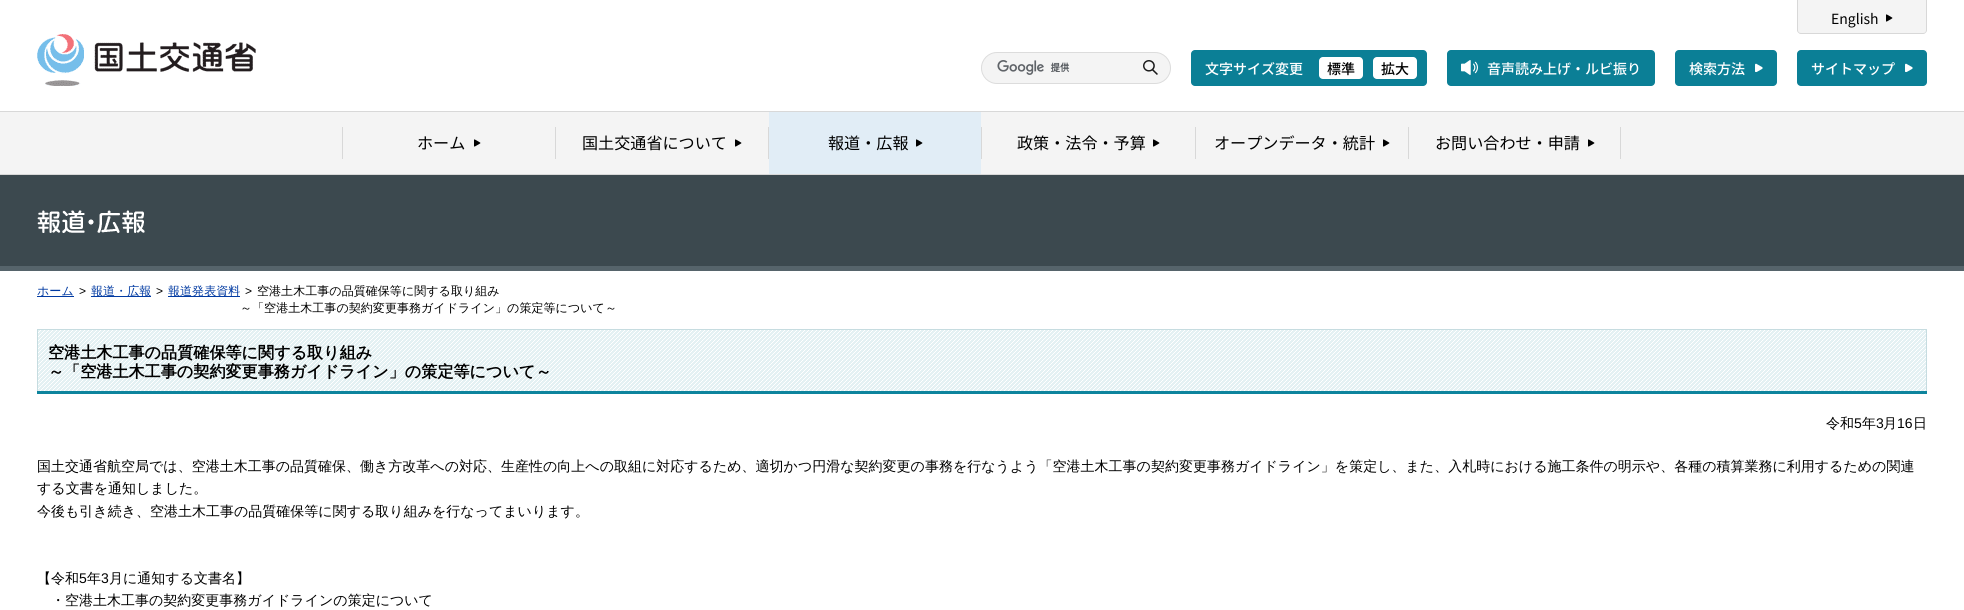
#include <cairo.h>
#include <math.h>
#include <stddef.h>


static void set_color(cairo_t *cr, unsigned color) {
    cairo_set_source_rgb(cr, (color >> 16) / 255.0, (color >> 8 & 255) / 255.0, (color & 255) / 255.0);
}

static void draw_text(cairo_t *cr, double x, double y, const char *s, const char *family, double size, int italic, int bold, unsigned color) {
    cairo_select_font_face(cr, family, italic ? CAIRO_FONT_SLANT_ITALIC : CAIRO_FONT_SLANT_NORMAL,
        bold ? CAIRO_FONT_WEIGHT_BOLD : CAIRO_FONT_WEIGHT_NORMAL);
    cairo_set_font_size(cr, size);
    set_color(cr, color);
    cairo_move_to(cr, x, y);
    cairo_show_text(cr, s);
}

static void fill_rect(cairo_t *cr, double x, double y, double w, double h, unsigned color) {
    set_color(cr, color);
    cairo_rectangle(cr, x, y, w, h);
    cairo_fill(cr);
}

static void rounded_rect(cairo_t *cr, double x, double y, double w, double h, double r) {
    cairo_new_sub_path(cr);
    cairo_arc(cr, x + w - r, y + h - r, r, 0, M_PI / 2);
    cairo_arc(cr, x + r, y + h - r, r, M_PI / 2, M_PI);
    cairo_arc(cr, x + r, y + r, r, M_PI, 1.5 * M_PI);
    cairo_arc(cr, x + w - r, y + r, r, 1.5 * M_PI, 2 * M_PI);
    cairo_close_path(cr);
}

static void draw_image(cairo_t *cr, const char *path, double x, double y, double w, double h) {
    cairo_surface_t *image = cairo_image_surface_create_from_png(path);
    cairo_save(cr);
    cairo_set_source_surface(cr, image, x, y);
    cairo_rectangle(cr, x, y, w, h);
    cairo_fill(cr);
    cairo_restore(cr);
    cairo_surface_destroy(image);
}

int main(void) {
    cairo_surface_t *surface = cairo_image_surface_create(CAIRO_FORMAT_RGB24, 1964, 610);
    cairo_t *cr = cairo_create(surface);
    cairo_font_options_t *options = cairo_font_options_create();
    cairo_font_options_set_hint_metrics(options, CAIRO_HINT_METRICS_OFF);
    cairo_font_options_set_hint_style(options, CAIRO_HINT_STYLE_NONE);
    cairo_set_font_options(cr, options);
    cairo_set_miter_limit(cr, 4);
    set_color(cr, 0xFFFFFF);
    cairo_paint(cr);
    draw_image(cr, "assets/img1.png", 37, 34, 219, 52);
    set_color(cr, 0xF4F4F4);
    cairo_new_path(cr);
    cairo_move_to(cr, 1797, 0);
    cairo_line_to(cr, 1927, 0);
    cairo_line_to(cr, 1927, 30);
    cairo_curve_to(cr, 1927, 32, 1925, 34, 1923, 34);
    cairo_line_to(cr, 1801, 34);
    cairo_curve_to(cr, 1799, 34, 1797, 32, 1797, 30);
    cairo_close_path(cr);
    cairo_fill(cr);
    set_color(cr, 0xD8D8D8);
    cairo_set_fill_rule(cr, CAIRO_FILL_RULE_EVEN_ODD);
    cairo_new_path(cr);
    cairo_move_to(cr, 1797, 0);
    cairo_line_to(cr, 1927, 0);
    cairo_line_to(cr, 1927, 30);
    cairo_curve_to(cr, 1927, 32, 1925, 34, 1923, 34);
    cairo_line_to(cr, 1801, 34);
    cairo_curve_to(cr, 1799, 34, 1797, 32, 1797, 30);
    cairo_close_path(cr);
    cairo_move_to(cr, 1798, 0);
    cairo_line_to(cr, 1926, 0);
    cairo_line_to(cr, 1926, 30);
    cairo_curve_to(cr, 1926, 32, 1925, 33, 1923, 33);
    cairo_line_to(cr, 1801, 33);
    cairo_curve_to(cr, 1799, 33, 1798, 32, 1798, 30);
    cairo_close_path(cr);
    cairo_fill(cr);
    draw_text(cr, 1831, 24, "English", "Noto Sans JP", 14, 0, 0, 0x000000);
    draw_image(cr, "assets/img2.png", 1886, 14, 7, 8);
    set_color(cr, 0xF4F4F4);
    rounded_rect(cr, 981.5, 52.5, 189, 31, 15.5);
    cairo_fill_preserve(cr);
    set_color(cr, 0xDCDCDC);
    cairo_set_line_width(cr, 1);
    cairo_stroke(cr);
    draw_image(cr, "assets/img3.png", 997, 60, 73, 15);
    draw_image(cr, "assets/img4.png", 1143, 60, 15, 15);
    set_color(cr, 0x0B7F96);
    rounded_rect(cr, 1191, 50, 236, 36, 4);
    cairo_fill(cr);
    draw_text(cr, 1205, 74, "文字サイズ変更", "Noto Sans JP Medium", 14, 0, 0, 0xFFFFFF);
    rounded_rect(cr, 1319, 57, 44, 22, 4);
    cairo_fill(cr);
    draw_text(cr, 1327, 74, "標準", "Noto Sans JP Medium", 14, 0, 0, 0x000000);
    set_color(cr, 0xFFFFFF);
    rounded_rect(cr, 1373, 57, 44, 22, 4);
    cairo_fill(cr);
    draw_text(cr, 1381, 74, "拡大", "Noto Sans JP Medium", 14, 0, 0, 0x000000);
    set_color(cr, 0x0B7F96);
    rounded_rect(cr, 1447, 50, 208, 36, 4);
    cairo_fill(cr);
    draw_image(cr, "assets/img5.png", 1461, 60, 17, 15);
    draw_text(cr, 1487, 74, "音声読み上げ・ルビ振り", "Noto Sans JP Medium", 14, 0, 0, 0xFFFFFF);
    set_color(cr, 0x0B7F96);
    rounded_rect(cr, 1675, 50, 102, 36, 4);
    cairo_fill(cr);
    draw_text(cr, 1689, 74, "検索方法", "Noto Sans JP Medium", 14, 0, 0, 0xFFFFFF);
    draw_image(cr, "assets/img6.png", 1755, 63, 8, 9);
    set_color(cr, 0x0B7F96);
    rounded_rect(cr, 1797, 50, 130, 36, 4);
    cairo_fill(cr);
    draw_text(cr, 1811, 74, "サイトマップ", "Noto Sans JP Medium", 14, 0, 0, 0xFFFFFF);
    draw_image(cr, "assets/img6.png", 1905, 63, 8, 9);
    fill_rect(cr, 0, 112, 1964, 62, 0xF4F4F4);
    fill_rect(cr, 0, 111, 1964, 1, 0xD8D8D8);
    fill_rect(cr, 0, 174, 1964, 1, 0xD8D8D8);
    fill_rect(cr, 342, 127, 1, 32, 0xD8D8D8);
    draw_text(cr, 417, 149, "ホーム", "Noto Sans JP", 16.1, 0, 0, 0x000000);
    draw_image(cr, "assets/img2.png", 474, 139, 7, 8);
    fill_rect(cr, 555, 127, 1, 32, 0xD8D8D8);
    draw_text(cr, 582, 149, "国土交通省について", "Noto Sans JP", 16.1, 0, 0, 0x000000);
    draw_image(cr, "assets/img2.png", 735, 139, 7, 8);
    fill_rect(cr, 769, 112, 212, 62, 0xE1EDF6);
    fill_rect(cr, 768, 127, 1, 32, 0xD8D8D8);
    draw_text(cr, 828, 149, "報道・広報", "Noto Sans JP", 16.1, 0, 0, 0x000000);
    draw_image(cr, "assets/img7.png", 916, 139, 7, 8);
    fill_rect(cr, 981, 127, 1, 32, 0xD8D8D8);
    draw_text(cr, 1017, 149, "政策・法令・予算", "Noto Sans JP", 16.1, 0, 0, 0x000000);
    draw_image(cr, "assets/img2.png", 1153, 139, 7, 8);
    fill_rect(cr, 1195, 127, 1, 32, 0xD8D8D8);
    draw_text(cr, 1214, 149, "オープンデータ・統計", "Noto Sans JP", 16.1, 0, 0, 0x000000);
    draw_image(cr, "assets/img2.png", 1383, 139, 7, 8);
    fill_rect(cr, 1408, 127, 1, 32, 0xD8D8D8);
    draw_text(cr, 1435, 149, "お問い合わせ・申請", "Noto Sans JP", 16.1, 0, 0, 0x000000);
    draw_image(cr, "assets/img2.png", 1588, 139, 7, 8);
    fill_rect(cr, 1620, 127, 1, 32, 0xD8D8D8);
    fill_rect(cr, 0, 175, 1964, 91, 0x3C494F);
    fill_rect(cr, 0, 266, 1964, 5, 0x56646B);
    draw_image(cr, "assets/img8.png", 37, 210, 108, 23);
    fill_rect(cr, 37, 296, 37, 1, 0x013AA2);
    draw_text(cr, 37, 295, "ホーム", "WenQuanYi Zen Hei Medium", 12.05, 0, 0, 0x013AA2);
    draw_text(cr, 79, 295, ">", "Liberation Sans", 12.05, 0, 0, 0x000000);
    fill_rect(cr, 91, 296, 60, 1, 0x013AA2);
    draw_text(cr, 91, 295, "報道・広報", "WenQuanYi Zen Hei Medium", 12.05, 0, 0, 0x013AA2);
    draw_text(cr, 156, 295, ">", "Liberation Sans", 12.05, 0, 0, 0x000000);
    fill_rect(cr, 168, 296, 72, 1, 0x013AA2);
    draw_text(cr, 168, 295, "報道発表資料", "WenQuanYi Zen Hei Medium", 12.05, 0, 0, 0x013AA2);
    draw_text(cr, 245, 295, ">", "Liberation Sans", 12.05, 0, 0, 0x000000);
    draw_text(cr, 257, 295, "空港土木工事の品質確保等に関する取り組み", "WenQuanYi Zen Hei Medium", 12.05, 0, 0, 0x000000);
    draw_text(cr, 240, 312, "～「空港土木工事の契約変更事務ガイドライン」の策定等について～", "WenQuanYi Zen Hei Medium", 12.05, 0, 0, 0x000000);
    fill_rect(cr, 37, 391, 1890, 3, 0x0D849D);
    draw_image(cr, "assets/img9.png", 38, 330, 1888, 61);
    fill_rect(cr, 37, 329, 1890, 1, 0xC6DCE0);
    fill_rect(cr, 1926, 329, 1, 62, 0xC6DCE0);
    fill_rect(cr, 37, 329, 1, 62, 0xC6DCE0);
    draw_text(cr, 48, 358, "空港土木工事の品質確保等に関する取り組み", "WenQuanYi Zen Hei", 16.1, 0, 1, 0x000000);
    draw_text(cr, 48, 377, "～「空港土木工事の契約変更事務ガイドライン」の策定等について～", "WenQuanYi Zen Hei", 16.1, 0, 1, 0x000000);
    draw_text(cr, 1826, 428, "令和", "WenQuanYi Zen Hei Medium", 14, 0, 0, 0x000000);
    draw_text(cr, 1854, 428, "5", "Liberation Sans", 14, 0, 0, 0x000000);
    draw_text(cr, 1862, 428, "年", "WenQuanYi Zen Hei Medium", 14, 0, 0, 0x000000);
    draw_text(cr, 1876, 428, "3", "Liberation Sans", 14, 0, 0, 0x000000);
    draw_text(cr, 1883, 428, "月", "WenQuanYi Zen Hei Medium", 14, 0, 0, 0x000000);
    draw_text(cr, 1897, 428, "16", "Liberation Sans", 14, 0, 0, 0x000000);
    draw_text(cr, 1913, 428, "日", "WenQuanYi Zen Hei Medium", 14, 0, 0, 0x000000);
    draw_text(cr, 37, 471, "国土交通省航空局では、空港土木工事の品質確保、働き方改革への対応、生産性の向上への取組に対応するため、適切かつ円滑な契約変更の事務を行なうよう「空港土木工事の契約変更事務ガイドライン」を策定し、また、入札時における施工条件の明示や、各種の積算業務に利用するための関連", "WenQuanYi Zen Hei Medium", 14, 0, 0, 0x000000);
    draw_text(cr, 37, 493, "する文書を通知しました。", "WenQuanYi Zen Hei Medium", 14, 0, 0, 0x000000);
    draw_text(cr, 37, 516, "今後も引き続き、空港土木工事の品質確保等に関する取り組みを行なってまいります。", "WenQuanYi Zen Hei Medium", 14, 0, 0, 0x000000);
    draw_text(cr, 37, 583, "【令和", "WenQuanYi Zen Hei Medium", 14, 0, 0, 0x000000);
    draw_text(cr, 79, 583, "5", "Liberation Sans", 14, 0, 0, 0x000000);
    draw_text(cr, 87, 583, "年", "WenQuanYi Zen Hei Medium", 14, 0, 0, 0x000000);
    draw_text(cr, 101, 583, "3", "Liberation Sans", 14, 0, 0, 0x000000);
    draw_text(cr, 109, 583, "月に通知する文書名】", "WenQuanYi Zen Hei Medium", 14, 0, 0, 0x000000);
    draw_text(cr, 51, 605, "・空港土木工事の契約変更事務ガイドラインの策定について", "WenQuanYi Zen Hei Medium", 14, 0, 0, 0x000000);
    cairo_surface_write_to_png(surface, "output.png");
    cairo_font_options_destroy(options);
    cairo_destroy(cr);
    cairo_surface_destroy(surface);
    return 0;
}
